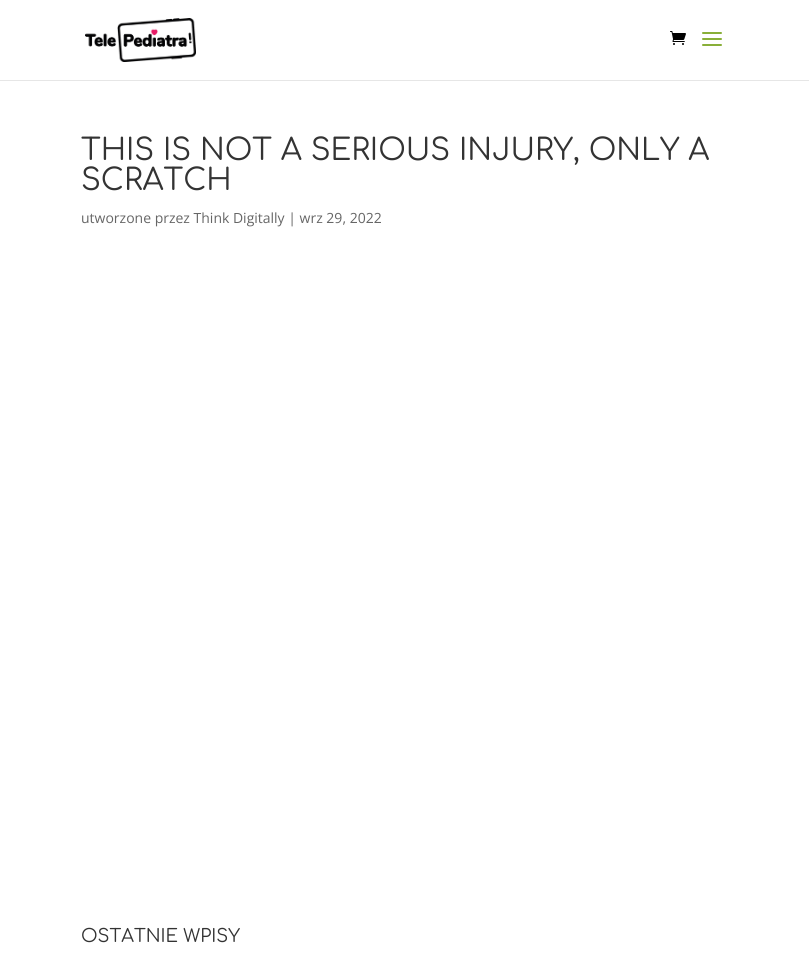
#include <cairo.h>
#include <math.h>
#include <stddef.h>


static void set_color(cairo_t *cr, unsigned color) {
    cairo_set_source_rgb(cr, (color >> 16) / 255.0, (color >> 8 & 255) / 255.0, (color & 255) / 255.0);
}

static void draw_text(cairo_t *cr, double x, double y, const char *s, const char *family, double size, int italic, int bold, unsigned color) {
    cairo_select_font_face(cr, family, italic ? CAIRO_FONT_SLANT_ITALIC : CAIRO_FONT_SLANT_NORMAL,
        bold ? CAIRO_FONT_WEIGHT_BOLD : CAIRO_FONT_WEIGHT_NORMAL);
    cairo_set_font_size(cr, size);
    set_color(cr, color);
    cairo_move_to(cr, x, y);
    cairo_show_text(cr, s);
}

static void fill_rect(cairo_t *cr, double x, double y, double w, double h, unsigned color) {
    set_color(cr, color);
    cairo_rectangle(cr, x, y, w, h);
    cairo_fill(cr);
}

static void draw_image(cairo_t *cr, const char *path, double x, double y, double w, double h) {
    cairo_surface_t *image = cairo_image_surface_create_from_png(path);
    cairo_save(cr);
    cairo_set_source_surface(cr, image, x, y);
    cairo_rectangle(cr, x, y, w, h);
    cairo_fill(cr);
    cairo_restore(cr);
    cairo_surface_destroy(image);
}

int main(void) {
    cairo_surface_t *surface = cairo_image_surface_create(CAIRO_FORMAT_RGB24, 809, 957);
    cairo_t *cr = cairo_create(surface);
    cairo_font_options_t *options = cairo_font_options_create();
    cairo_font_options_set_hint_metrics(options, CAIRO_HINT_METRICS_OFF);
    cairo_font_options_set_hint_style(options, CAIRO_HINT_STYLE_NONE);
    cairo_set_font_options(cr, options);
    cairo_set_miter_limit(cr, 4);
    set_color(cr, 0xFFFFFF);
    cairo_paint(cr);
    fill_rect(cr, 0, 80, 809, 1, 0xE6E6E6);
    draw_image(cr, "assets/img1.png", 85, 18, 111, 44);
    draw_image(cr, "assets/img2.png", 670, 31, 16, 14);
    draw_image(cr, "assets/img3.png", 702, 32, 20, 14);
    draw_text(cr, 81, 160, "THIS IS NOT A SERIOUS INJURY, ONLY A", "Comfortaa", 30, 0, 0, 0x333333);
    draw_text(cr, 81, 190, "SCRATCH", "Comfortaa", 30, 0, 0, 0x333333);
    draw_text(cr, 81, 223, "utworzone przez Think Digitally | wrz 29, 2022", "Open Sans", 14, 0, 0, 0x666666);
    draw_text(cr, 81, 942, "OSTATNIE WPISY", "Comfortaa", 18, 0, 0, 0x333333);
    cairo_surface_write_to_png(surface, "output.png");
    cairo_font_options_destroy(options);
    cairo_destroy(cr);
    cairo_surface_destroy(surface);
    return 0;
}
